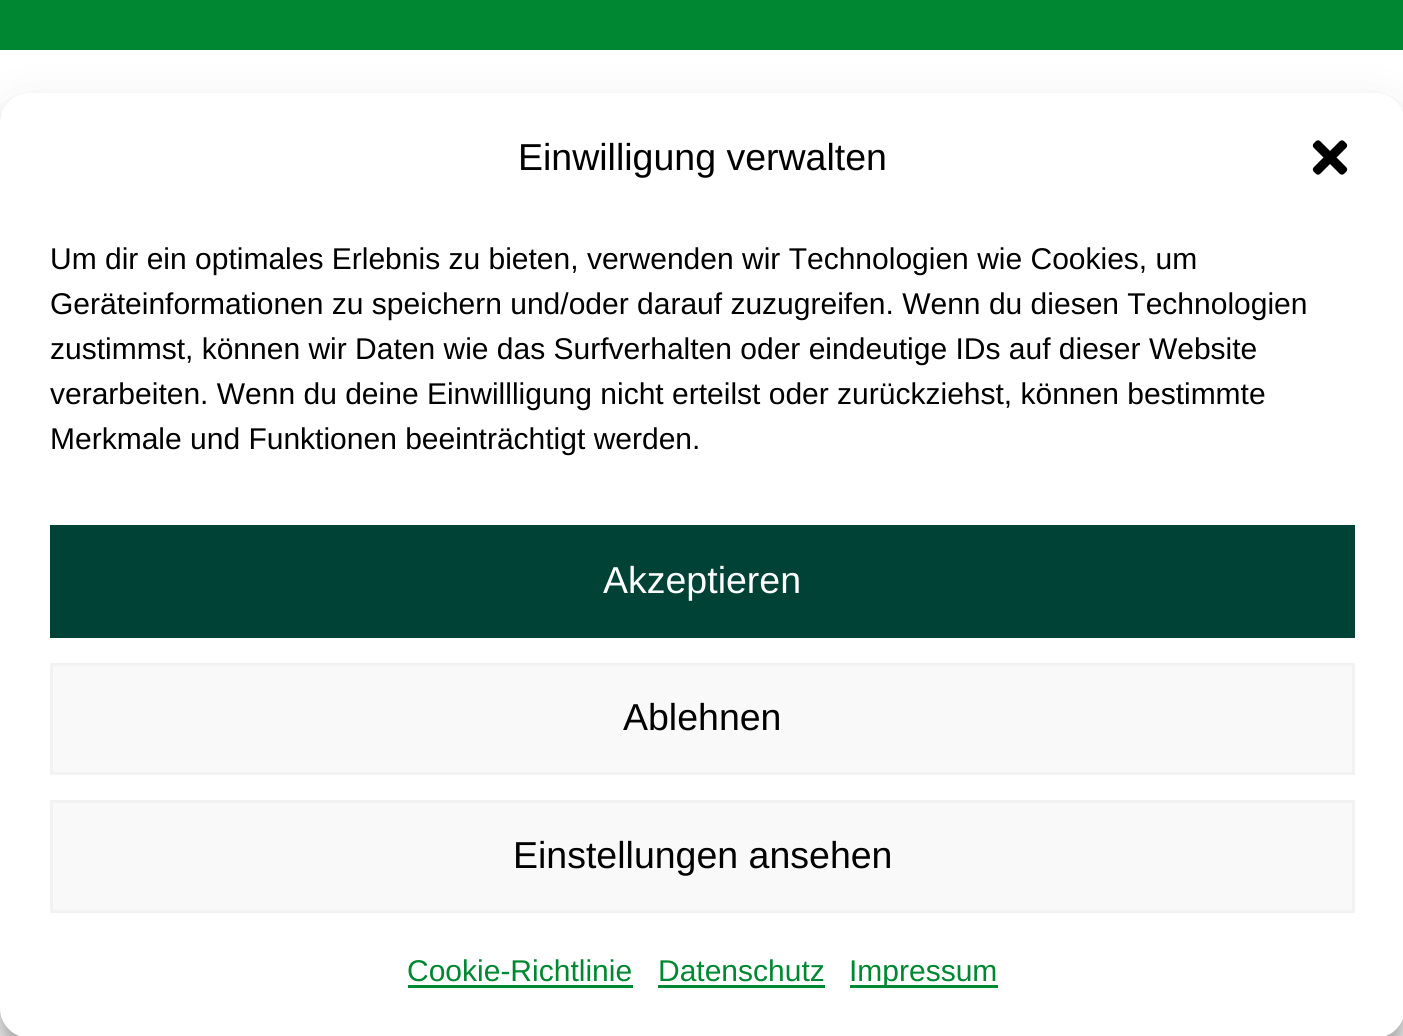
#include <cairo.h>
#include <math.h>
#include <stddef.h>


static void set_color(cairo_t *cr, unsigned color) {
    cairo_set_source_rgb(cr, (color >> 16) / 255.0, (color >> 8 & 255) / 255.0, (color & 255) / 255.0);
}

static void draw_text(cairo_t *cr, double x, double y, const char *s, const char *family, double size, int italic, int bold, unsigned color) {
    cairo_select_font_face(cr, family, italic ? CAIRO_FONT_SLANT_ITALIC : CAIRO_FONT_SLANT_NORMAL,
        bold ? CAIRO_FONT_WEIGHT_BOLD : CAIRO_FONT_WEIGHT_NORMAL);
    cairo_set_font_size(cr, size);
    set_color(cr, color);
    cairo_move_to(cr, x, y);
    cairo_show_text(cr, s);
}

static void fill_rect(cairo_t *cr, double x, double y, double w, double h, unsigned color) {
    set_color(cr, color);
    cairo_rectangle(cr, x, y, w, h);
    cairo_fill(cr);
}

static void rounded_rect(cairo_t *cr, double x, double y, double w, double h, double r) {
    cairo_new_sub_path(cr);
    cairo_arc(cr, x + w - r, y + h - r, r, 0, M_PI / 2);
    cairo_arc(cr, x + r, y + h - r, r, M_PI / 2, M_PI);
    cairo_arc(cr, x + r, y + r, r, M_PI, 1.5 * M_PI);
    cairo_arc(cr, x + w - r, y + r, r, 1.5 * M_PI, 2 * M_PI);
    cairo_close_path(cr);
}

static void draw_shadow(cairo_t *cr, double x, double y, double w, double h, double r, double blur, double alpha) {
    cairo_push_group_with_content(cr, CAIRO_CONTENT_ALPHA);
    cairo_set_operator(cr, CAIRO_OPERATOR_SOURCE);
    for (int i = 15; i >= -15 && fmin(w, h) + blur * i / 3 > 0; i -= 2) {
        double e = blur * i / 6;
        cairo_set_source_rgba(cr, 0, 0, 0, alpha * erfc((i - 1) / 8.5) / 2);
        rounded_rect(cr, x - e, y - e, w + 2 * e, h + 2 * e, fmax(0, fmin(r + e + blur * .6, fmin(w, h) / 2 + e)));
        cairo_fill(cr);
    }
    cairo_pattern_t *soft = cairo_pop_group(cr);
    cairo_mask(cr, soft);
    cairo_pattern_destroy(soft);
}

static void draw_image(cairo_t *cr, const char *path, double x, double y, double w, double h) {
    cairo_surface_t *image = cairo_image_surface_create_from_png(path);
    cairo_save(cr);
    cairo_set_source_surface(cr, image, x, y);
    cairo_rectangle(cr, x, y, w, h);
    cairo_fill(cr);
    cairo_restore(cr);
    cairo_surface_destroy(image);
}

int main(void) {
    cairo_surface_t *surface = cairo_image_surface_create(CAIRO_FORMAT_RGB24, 1403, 1036);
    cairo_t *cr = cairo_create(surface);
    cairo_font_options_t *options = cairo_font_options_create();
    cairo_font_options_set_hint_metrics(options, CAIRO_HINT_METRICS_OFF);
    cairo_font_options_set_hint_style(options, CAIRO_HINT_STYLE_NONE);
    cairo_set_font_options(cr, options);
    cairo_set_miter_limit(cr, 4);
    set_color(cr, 0xFFFFFF);
    cairo_paint(cr);
    fill_rect(cr, 0, 0, 1403, 50, 0x008731);
    set_color(cr, 0x000000);
    draw_shadow(cr, 0, 108, 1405, 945, 30, 7.5, 0.23);
    draw_shadow(cr, 0, 118, 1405, 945, 30, 25, 0.19);
    set_color(cr, 0xFFFFFF);
    rounded_rect(cr, 0, 93, 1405, 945, 30);
    cairo_fill(cr);
    draw_text(cr, 518, 170, "Einwilligung verwalten", "Liberation Sans", 37.5, 0, 0, 0x000000);
    draw_image(cr, "assets/img1.png", 1312, 140, 36, 35);
    draw_text(cr, 50, 269, "Um dir ein optimales Erlebnis zu bieten, verwenden wir Technologien wie Cookies, um", "Liberation Sans", 30, 0, 0, 0x000000);
    draw_text(cr, 50, 314, "Geräteinformationen zu speichern und/oder darauf zuzugreifen. Wenn du diesen Technologien", "Liberation Sans", 30, 0, 0, 0x000000);
    draw_text(cr, 50, 359, "zustimmst, können wir Daten wie das Surfverhalten oder eindeutige IDs auf dieser Website", "Liberation Sans", 30, 0, 0, 0x000000);
    draw_text(cr, 50, 404, "verarbeiten. Wenn du deine Einwillligung nicht erteilst oder zurückziehst, können bestimmte", "Liberation Sans", 30, 0, 0, 0x000000);
    draw_text(cr, 50, 449, "Merkmale und Funktionen beeinträchtigt werden.", "Liberation Sans", 30, 0, 0, 0x000000);
    fill_rect(cr, 50, 525, 1305, 113, 0x004235);
    draw_text(cr, 603, 593, "Akzeptieren", "Liberation Sans", 37.5, 0, 0, 0xFFFFFF);
    set_color(cr, 0xF9F9F9);
    cairo_rectangle(cr, 51.5, 664.5, 1302, 109);
    cairo_fill_preserve(cr);
    set_color(cr, 0xF2F2F2);
    cairo_set_line_width(cr, 3);
    cairo_stroke(cr);
    draw_text(cr, 623, 730, "Ablehnen", "Liberation Sans", 37.5, 0, 0, 0x000000);
    set_color(cr, 0xF9F9F9);
    cairo_rectangle(cr, 51.5, 801.5, 1302, 110);
    cairo_fill_preserve(cr);
    set_color(cr, 0xF2F2F2);
    cairo_stroke(cr);
    draw_text(cr, 513, 868, "Einstellungen ansehen", "Liberation Sans", 37.5, 0, 0, 0x000000);
    draw_text(cr, 407, 981, "Cookie-Richtlinie", "Liberation Sans", 30, 0, 0, 0x008731);
    fill_rect(cr, 408, 985, 225, 3, 0x008731);
    draw_text(cr, 658, 981, "Datenschutz", "Liberation Sans", 30, 0, 0, 0x008731);
    fill_rect(cr, 658, 985, 167, 3, 0x008731);
    fill_rect(cr, 850, 985, 148, 3, 0x008731);
    draw_text(cr, 849, 981, "Impressum", "Liberation Sans", 30, 0, 0, 0x008731);
    cairo_surface_write_to_png(surface, "output.png");
    cairo_font_options_destroy(options);
    cairo_destroy(cr);
    cairo_surface_destroy(surface);
    return 0;
}
